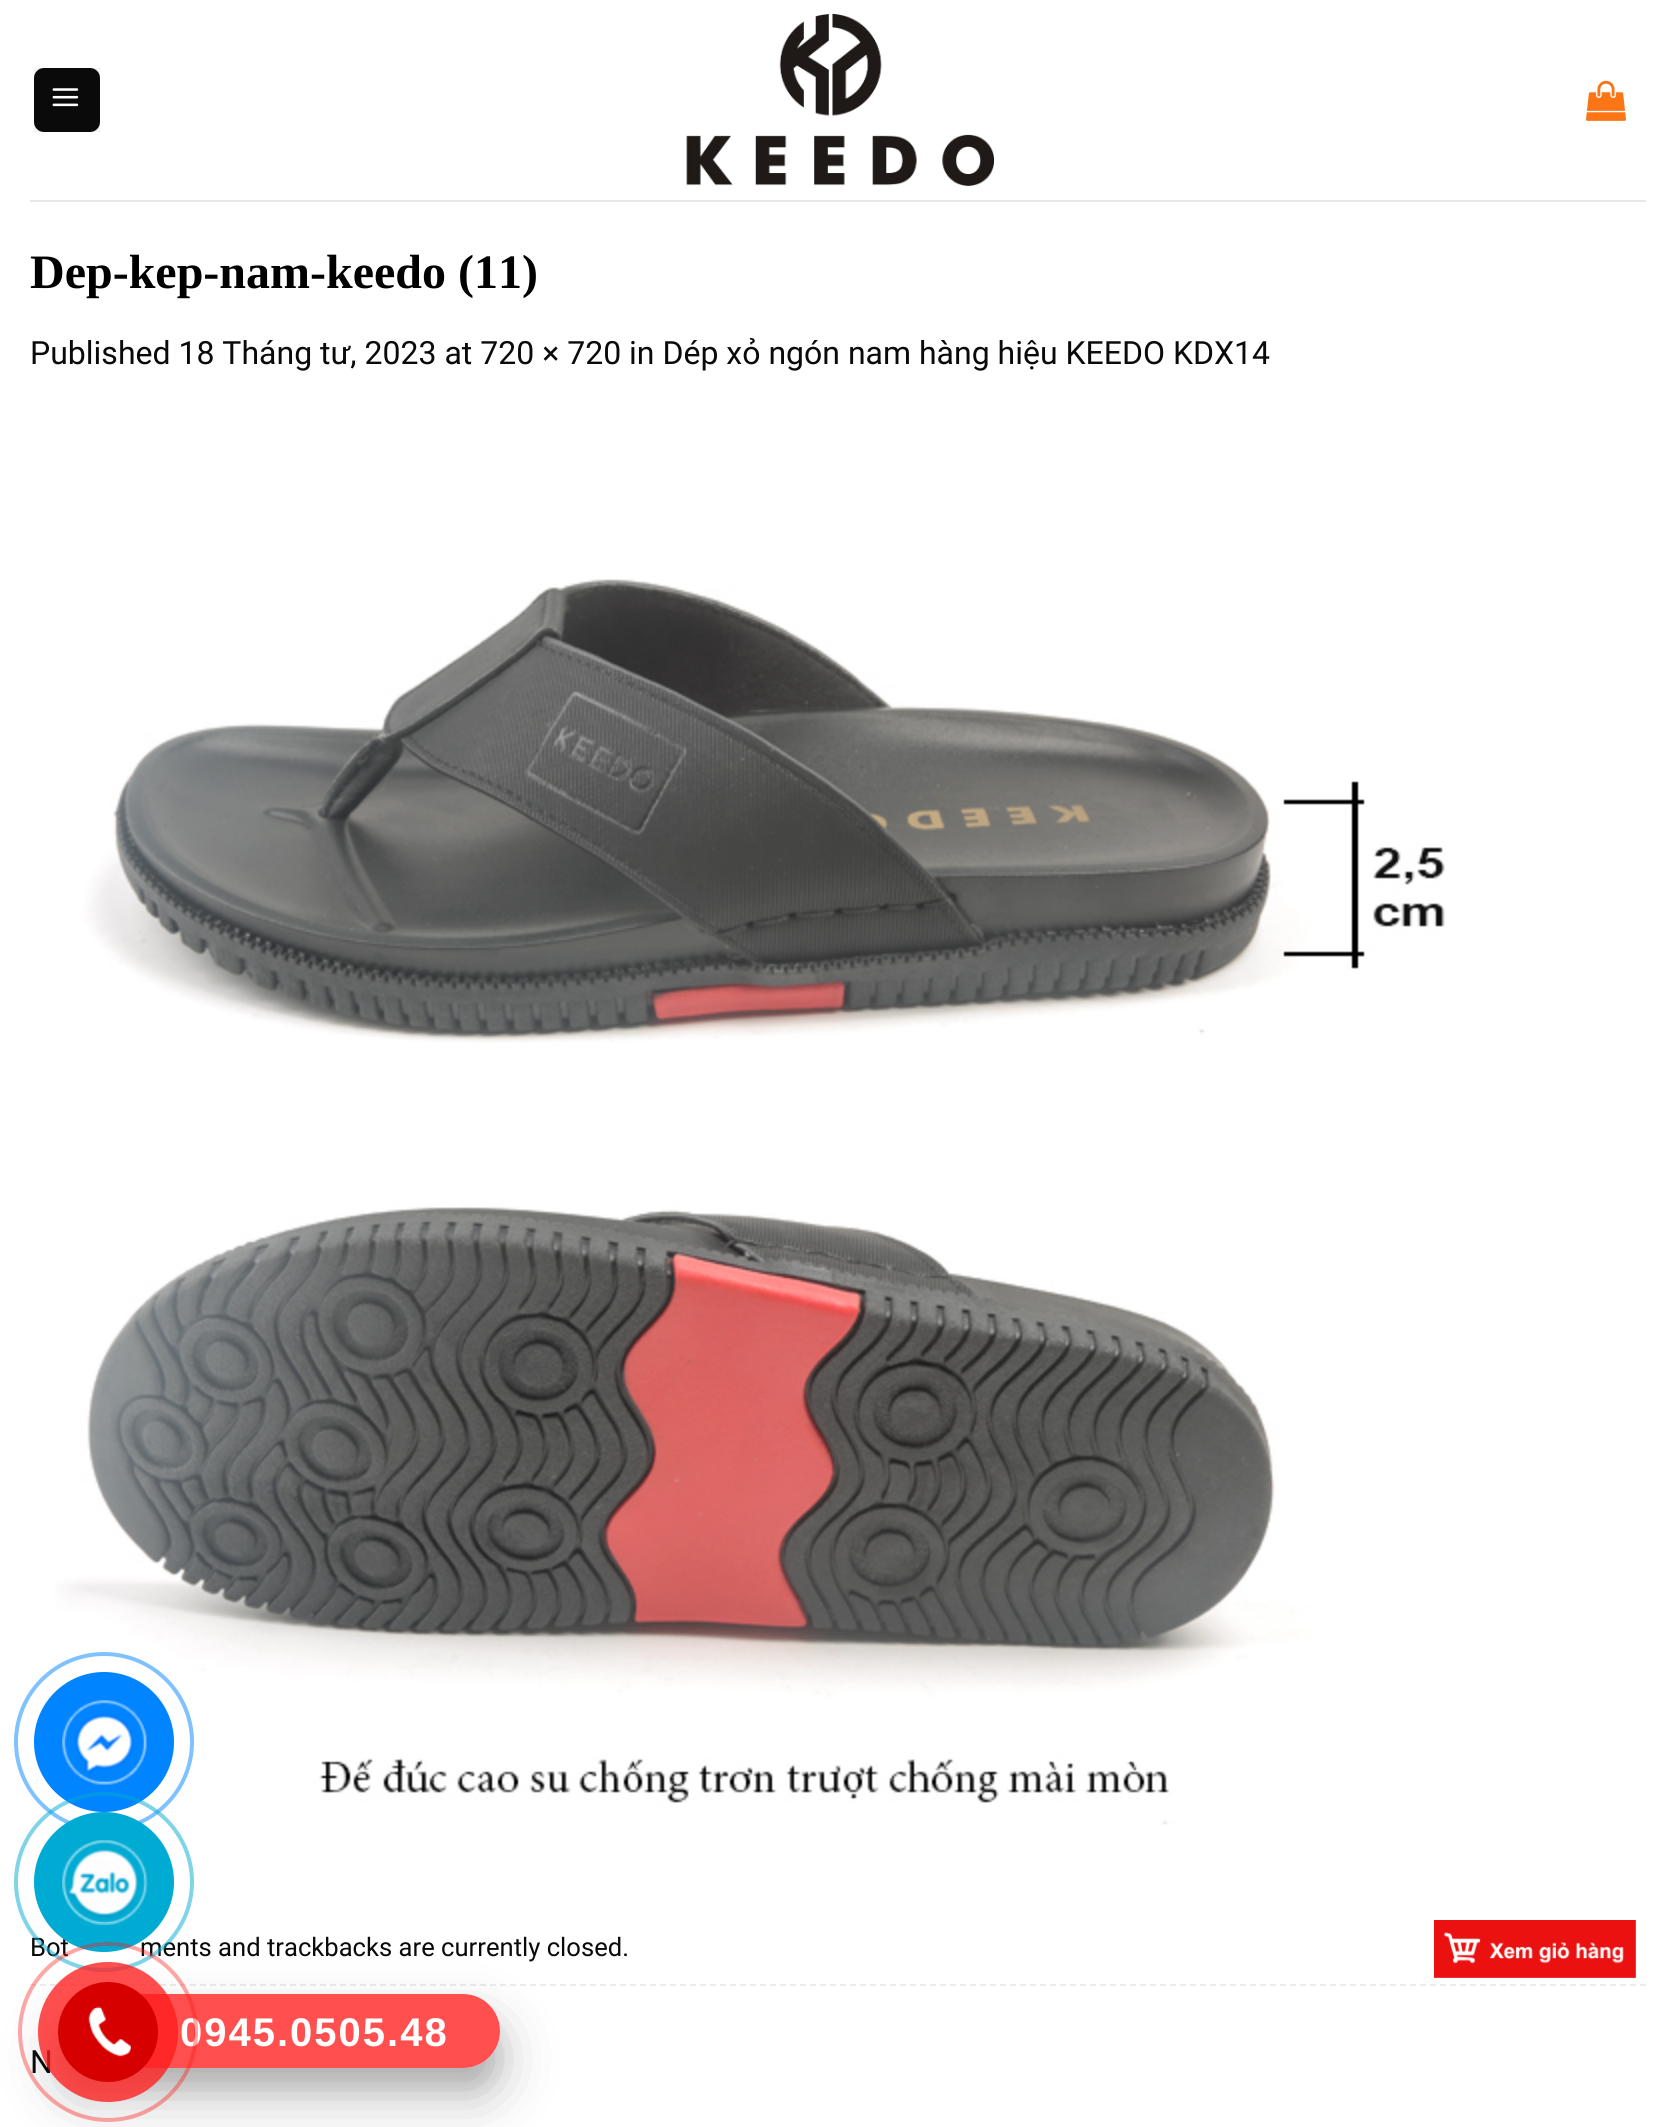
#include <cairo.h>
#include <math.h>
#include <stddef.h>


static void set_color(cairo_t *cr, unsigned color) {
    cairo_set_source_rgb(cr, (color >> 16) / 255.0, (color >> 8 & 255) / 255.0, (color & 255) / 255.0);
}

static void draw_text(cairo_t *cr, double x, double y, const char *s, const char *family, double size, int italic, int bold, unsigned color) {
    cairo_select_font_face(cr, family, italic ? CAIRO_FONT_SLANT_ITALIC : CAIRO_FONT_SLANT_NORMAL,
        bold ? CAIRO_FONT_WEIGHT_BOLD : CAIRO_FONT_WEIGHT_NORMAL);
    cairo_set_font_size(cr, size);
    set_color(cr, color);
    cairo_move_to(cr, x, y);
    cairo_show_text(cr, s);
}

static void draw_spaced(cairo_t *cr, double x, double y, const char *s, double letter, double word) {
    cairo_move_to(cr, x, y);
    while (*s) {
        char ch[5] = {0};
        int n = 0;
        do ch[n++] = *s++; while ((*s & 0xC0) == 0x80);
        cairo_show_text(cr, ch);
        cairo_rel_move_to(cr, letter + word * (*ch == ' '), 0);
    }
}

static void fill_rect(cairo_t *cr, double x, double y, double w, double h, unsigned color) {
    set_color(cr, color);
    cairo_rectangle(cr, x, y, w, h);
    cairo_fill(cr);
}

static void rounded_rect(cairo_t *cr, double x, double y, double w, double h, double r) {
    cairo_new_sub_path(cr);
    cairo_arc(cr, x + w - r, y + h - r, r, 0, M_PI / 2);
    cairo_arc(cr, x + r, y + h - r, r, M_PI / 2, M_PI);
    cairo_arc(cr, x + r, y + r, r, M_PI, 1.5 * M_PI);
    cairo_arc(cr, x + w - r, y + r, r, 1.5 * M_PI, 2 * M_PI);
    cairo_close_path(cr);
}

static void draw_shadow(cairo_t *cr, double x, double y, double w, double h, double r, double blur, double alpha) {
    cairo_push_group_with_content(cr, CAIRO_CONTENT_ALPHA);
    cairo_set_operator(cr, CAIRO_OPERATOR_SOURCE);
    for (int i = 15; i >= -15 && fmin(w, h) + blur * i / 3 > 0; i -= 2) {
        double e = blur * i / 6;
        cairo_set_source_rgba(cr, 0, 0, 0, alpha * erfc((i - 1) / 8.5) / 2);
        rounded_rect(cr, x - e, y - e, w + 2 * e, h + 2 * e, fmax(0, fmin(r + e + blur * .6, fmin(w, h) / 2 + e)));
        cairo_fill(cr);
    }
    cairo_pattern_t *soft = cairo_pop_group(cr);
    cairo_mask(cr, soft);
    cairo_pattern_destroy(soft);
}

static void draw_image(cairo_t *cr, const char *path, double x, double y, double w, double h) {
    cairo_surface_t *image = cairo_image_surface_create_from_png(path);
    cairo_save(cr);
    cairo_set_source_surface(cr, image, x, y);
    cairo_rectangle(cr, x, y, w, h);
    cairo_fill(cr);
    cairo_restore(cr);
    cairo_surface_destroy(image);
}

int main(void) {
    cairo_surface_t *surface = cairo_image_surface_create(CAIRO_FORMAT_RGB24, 1676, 2127);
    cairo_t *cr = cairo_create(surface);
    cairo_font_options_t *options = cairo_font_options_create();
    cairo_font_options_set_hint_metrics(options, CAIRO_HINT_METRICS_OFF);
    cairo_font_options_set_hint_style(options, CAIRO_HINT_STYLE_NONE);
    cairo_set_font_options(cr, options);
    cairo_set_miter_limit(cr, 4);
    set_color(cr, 0xFFFFFF);
    cairo_paint(cr);
    set_color(cr, 0x0A0A0A);
    rounded_rect(cr, 34, 68, 66, 64, 10);
    cairo_fill(cr);
    cairo_rectangle(cr, 35, 69, 64, 62);
    cairo_set_source_rgba(cr, 0, 0, 0, 0.05);
    cairo_stroke(cr);
    draw_image(cr, "assets/img1.png", 52, 88, 27, 19);
    draw_image(cr, "assets/img2.png", 686, 14, 308, 172);
    draw_image(cr, "assets/img3.png", 1586, 80, 40, 41);
    fill_rect(cr, 30, 200, 1616, 2, 0xE7E7E7);
    draw_text(cr, 30, 288, "Dep-kep-nam-keedo (11)", "Liberation Serif", 48, 0, 1, 0x000000);
    draw_text(cr, 30, 364, "Published 18 Tháng tư, 2023 at 720 × 720 in Dép xỏ ngón nam hàng hiệu KEEDO KDX14", "Roboto", 32, 0, 0, 0x0A0A0A);
    draw_image(cr, "assets/img4.png", 55, 579, 1390, 1246);
    cairo_new_path(cr);
    cairo_move_to(cr, 30, 1985);
    cairo_line_to(cr, 1646, 1985);
    set_color(cr, 0xECECEC);
    cairo_set_dash(cr, (double[]){6, 4}, 2, 0);
    cairo_stroke(cr);
    draw_text(cr, 30, 1956, "Bot", "Roboto", 25.6, 0, 0, 0x0A0A0A);
    draw_text(cr, 140, 1956, "ments and trackbacks are currently closed.", "Roboto", 25.6, 0, 0, 0x0A0A0A);
    draw_text(cr, 30, 2073, "N", "Roboto", 32, 0, 0, 0x0A0A0A);
    draw_image(cr, "assets/img5.png", 1434, 1920, 202, 58);
    cairo_arc(cr, 104, 1742, 88, 0, 2 * M_PI);
    set_color(cr, 0x80C2FF);
    cairo_set_line_width(cr, 4);
    cairo_set_dash(cr, NULL, 0, 0);
    cairo_stroke(cr);
    set_color(cr, 0x0084FF);
    cairo_arc(cr, 104, 1742, 70, 0, 2 * M_PI);
    cairo_fill(cr);
    draw_image(cr, "assets/img6.png", 62, 1700, 85, 85);
    cairo_save(cr);
    cairo_set_fill_rule(cr, CAIRO_FILL_RULE_EVEN_ODD);
    cairo_new_path(cr);
    cairo_move_to(cr, 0, 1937);
    cairo_line_to(cr, 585, 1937);
    cairo_line_to(cr, 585, 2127);
    cairo_line_to(cr, 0, 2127);
    cairo_close_path(cr);
    cairo_move_to(cr, 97, 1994);
    cairo_line_to(cr, 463, 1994);
    cairo_curve_to(cr, 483.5, 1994, 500, 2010.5, 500, 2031);
    cairo_curve_to(cr, 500, 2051.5, 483.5, 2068, 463, 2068);
    cairo_line_to(cr, 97, 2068);
    cairo_curve_to(cr, 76.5, 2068, 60, 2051.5, 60, 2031);
    cairo_curve_to(cr, 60, 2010.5, 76.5, 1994, 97, 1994);
    cairo_close_path(cr);
    cairo_clip(cr);
    set_color(cr, 0x000000);
    draw_shadow(cr, 60, 2022, 440, 74, 37, 28, 0.25);
    cairo_restore(cr);
    cairo_arc(cr, 104, 1882, 88, 0, 2 * M_PI);
    cairo_set_source_rgba(cr, 0, 0.671, 0.827, 0.5);
    cairo_stroke(cr);
    set_color(cr, 0x00ABD3);
    cairo_arc(cr, 104, 1882, 70, 0, 2 * M_PI);
    cairo_fill(cr);
    draw_image(cr, "assets/img7.png", 62, 1840, 86, 86);
    cairo_save(cr);
    cairo_set_fill_rule(cr, CAIRO_FILL_RULE_EVEN_ODD);
    cairo_new_path(cr);
    cairo_move_to(cr, 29, 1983);
    cairo_line_to(cr, 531, 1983);
    cairo_line_to(cr, 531, 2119);
    cairo_line_to(cr, 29, 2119);
    cairo_close_path(cr);
    cairo_move_to(cr, 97, 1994);
    cairo_line_to(cr, 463, 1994);
    cairo_curve_to(cr, 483.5, 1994, 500, 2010.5, 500, 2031);
    cairo_curve_to(cr, 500, 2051.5, 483.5, 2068, 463, 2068);
    cairo_line_to(cr, 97, 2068);
    cairo_curve_to(cr, 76.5, 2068, 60, 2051.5, 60, 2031);
    cairo_curve_to(cr, 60, 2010.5, 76.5, 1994, 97, 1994);
    cairo_close_path(cr);
    cairo_clip(cr);
    set_color(cr, 0x000000);
    draw_shadow(cr, 60, 2014, 440, 74, 37, 10, 0.1);
    cairo_restore(cr);
    cairo_set_source_rgba(cr, 1, 0.11, 0.11, 0.77);
    rounded_rect(cr, 60, 1994, 440, 74, 37);
    cairo_fill(cr);
    cairo_select_font_face(cr, "Liberation Sans", CAIRO_FONT_SLANT_NORMAL, CAIRO_FONT_WEIGHT_BOLD);
    cairo_set_font_size(cr, 40);
    set_color(cr, 0xFFFFFF);
    draw_spaced(cr, 180, 2046, "0945.0505.48", 2, 0);
    cairo_new_path(cr);
    cairo_arc(cr, 108, 2032, 88, 0, 2 * M_PI);
    cairo_set_source_rgba(cr, 1, 0.11, 0.11, 0.39);
    cairo_stroke(cr);
    cairo_set_source_rgba(cr, 1, 0.11, 0.11, 0.77);
    cairo_arc(cr, 108, 2032, 70, 0, 2 * M_PI);
    cairo_fill(cr);
    set_color(cr, 0xD60000);
    cairo_arc(cr, 108, 2032, 50, 0, 2 * M_PI);
    cairo_fill(cr);
    draw_image(cr, "assets/img8.png", 88, 2006, 43, 51);
    cairo_surface_write_to_png(surface, "output.png");
    cairo_font_options_destroy(options);
    cairo_destroy(cr);
    cairo_surface_destroy(surface);
    return 0;
}
